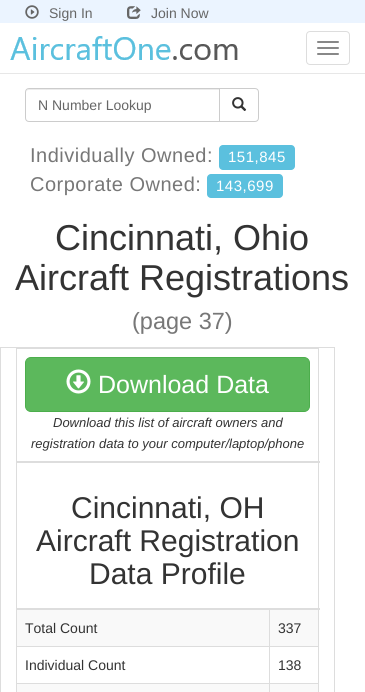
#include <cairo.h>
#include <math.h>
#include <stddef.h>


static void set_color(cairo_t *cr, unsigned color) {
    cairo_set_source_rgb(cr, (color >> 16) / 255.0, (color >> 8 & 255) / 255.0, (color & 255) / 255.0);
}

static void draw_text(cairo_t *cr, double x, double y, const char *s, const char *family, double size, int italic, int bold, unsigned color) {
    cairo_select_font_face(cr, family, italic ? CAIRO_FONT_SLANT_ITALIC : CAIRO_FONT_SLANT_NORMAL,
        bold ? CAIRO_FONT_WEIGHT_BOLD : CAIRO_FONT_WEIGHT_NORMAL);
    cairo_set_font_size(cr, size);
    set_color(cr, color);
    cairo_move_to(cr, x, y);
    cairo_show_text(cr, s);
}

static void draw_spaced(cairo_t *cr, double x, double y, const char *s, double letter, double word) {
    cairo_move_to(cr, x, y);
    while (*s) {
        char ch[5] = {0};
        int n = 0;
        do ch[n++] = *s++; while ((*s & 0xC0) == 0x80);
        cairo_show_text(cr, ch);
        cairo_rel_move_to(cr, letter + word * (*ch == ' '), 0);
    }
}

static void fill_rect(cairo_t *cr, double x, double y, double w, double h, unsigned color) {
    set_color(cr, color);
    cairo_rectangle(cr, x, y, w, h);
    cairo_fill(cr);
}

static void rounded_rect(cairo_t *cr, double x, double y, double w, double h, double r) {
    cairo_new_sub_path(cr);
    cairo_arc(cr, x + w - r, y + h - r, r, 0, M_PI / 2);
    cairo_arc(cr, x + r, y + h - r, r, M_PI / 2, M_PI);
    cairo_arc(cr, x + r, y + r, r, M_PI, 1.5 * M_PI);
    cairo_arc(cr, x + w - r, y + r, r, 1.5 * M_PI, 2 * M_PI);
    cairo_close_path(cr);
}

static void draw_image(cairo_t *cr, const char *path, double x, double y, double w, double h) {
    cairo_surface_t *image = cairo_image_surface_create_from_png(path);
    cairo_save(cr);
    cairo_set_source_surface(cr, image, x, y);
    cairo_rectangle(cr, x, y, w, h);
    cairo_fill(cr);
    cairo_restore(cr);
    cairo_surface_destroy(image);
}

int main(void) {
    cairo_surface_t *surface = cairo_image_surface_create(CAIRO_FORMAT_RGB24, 365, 692);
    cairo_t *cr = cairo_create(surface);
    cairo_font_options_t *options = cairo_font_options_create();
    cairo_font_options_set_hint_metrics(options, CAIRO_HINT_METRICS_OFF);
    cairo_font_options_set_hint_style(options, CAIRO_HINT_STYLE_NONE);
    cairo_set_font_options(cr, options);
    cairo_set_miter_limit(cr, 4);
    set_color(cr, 0xFFFFFF);
    cairo_paint(cr);
    fill_rect(cr, 0, 0, 365, 23, 0xEBF4FF);
    draw_image(cr, "assets/img1.png", 25, 5, 14, 14);
    draw_text(cr, 49, 18, "Sign In", "Liberation Sans", 14, 0, 0, 0x666666);
    draw_image(cr, "assets/img2.png", 127, 6, 14, 13);
    draw_text(cr, 151, 18, "Join Now", "Liberation Sans", 14, 0, 0, 0x666666);
    fill_rect(cr, 0, 73, 365, 1, 0xE7E7E7);
    draw_image(cr, "assets/img3.png", 10, 36, 228, 24);
    rounded_rect(cr, 306.5, 31.5, 43, 33, 3.5);
    set_color(cr, 0xDDDDDD);
    cairo_set_line_width(cr, 1);
    cairo_stroke(cr);
    set_color(cr, 0x888888);
    rounded_rect(cr, 317, 41, 22, 2, 1);
    cairo_fill(cr);
    rounded_rect(cr, 317, 47, 22, 2, 1);
    cairo_fill(cr);
    rounded_rect(cr, 317, 53, 22, 2, 1);
    cairo_fill(cr);
    set_color(cr, 0xECECEC);
    cairo_new_path(cr);
    cairo_move_to(cr, 29, 90);
    cairo_line_to(cr, 219, 90);
    cairo_line_to(cr, 219, 89);
    cairo_line_to(cr, 29, 89);
    cairo_curve_to(cr, 27, 89, 26, 91, 26, 93);
    cairo_curve_to(cr, 26, 91, 27, 90, 29, 90);
    cairo_close_path(cr);
    cairo_fill(cr);
    cairo_new_path(cr);
    cairo_move_to(cr, 29, 88.5);
    cairo_line_to(cr, 219.5, 88.5);
    cairo_line_to(cr, 219.5, 121.5);
    cairo_line_to(cr, 29, 121.5);
    cairo_curve_to(cr, 27, 121.5, 25.5, 120, 25.5, 118);
    cairo_line_to(cr, 25.5, 92);
    cairo_curve_to(cr, 25.5, 90, 27, 88.5, 29, 88.5);
    cairo_close_path(cr);
    set_color(cr, 0xCCCCCC);
    cairo_stroke(cr);
    draw_text(cr, 38, 110, "N Number Lookup", "Liberation Sans", 14, 0, 0, 0x666666);
    set_color(cr, 0xFFFFFF);
    cairo_new_path(cr);
    cairo_move_to(cr, 219.5, 88.5);
    cairo_line_to(cr, 255, 88.5);
    cairo_curve_to(cr, 257, 88.5, 258.5, 90, 258.5, 92);
    cairo_line_to(cr, 258.5, 118);
    cairo_curve_to(cr, 258.5, 120, 257, 121.5, 255, 121.5);
    cairo_line_to(cr, 219.5, 121.5);
    cairo_close_path(cr);
    cairo_fill_preserve(cr);
    set_color(cr, 0xCCCCCC);
    cairo_stroke(cr);
    draw_image(cr, "assets/img4.png", 232, 97, 15, 14);
    cairo_set_font_size(cr, 20);
    set_color(cr, 0x777777);
    draw_spaced(cr, 30, 162, "Individually Owned:", 0.5, 0);
    set_color(cr, 0x5BC0DE);
    rounded_rect(cr, 219, 145, 76, 25, 4);
    cairo_fill(cr);
    cairo_set_font_size(cr, 15);
    set_color(cr, 0xFFFFFF);
    draw_spaced(cr, 228, 162, "151,845", 0.5, 0);
    cairo_set_font_size(cr, 20);
    set_color(cr, 0x777777);
    draw_spaced(cr, 30, 191, "Corporate Owned:", 0.5, 0);
    set_color(cr, 0x5BC0DE);
    rounded_rect(cr, 207, 174, 76, 24, 4);
    cairo_fill(cr);
    cairo_set_font_size(cr, 15);
    set_color(cr, 0xFFFFFF);
    draw_spaced(cr, 216, 191, "143,699", 0.5, 0);
    draw_text(cr, 55, 250, "Cincinnati, Ohio", "Liberation Sans", 36, 0, 0, 0x333333);
    draw_text(cr, 15, 290, "Aircraft Registrations", "Liberation Sans", 36, 0, 0, 0x333333);
    draw_text(cr, 132, 329, "(page 37)", "Liberation Sans", 23.5, 0, 0, 0x777777);
    cairo_rectangle(cr, 0.5, 347.5, 334, 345);
    set_color(cr, 0xDDDDDD);
    cairo_stroke(cr);
    fill_rect(cr, 16, 348, 303, 1, 0xDDDDDD);
    fill_rect(cr, 17, 684, 302, 8, 0xF9F9F9);
    fill_rect(cr, 318, 348, 1, 344, 0xDDDDDD);
    fill_rect(cr, 16, 348, 1, 344, 0xDDDDDD);
    fill_rect(cr, 16, 461, 304, 2, 0xDDDDDD);
    set_color(cr, 0x5CB85C);
    rounded_rect(cr, 25.5, 357.5, 284, 54, 5.5);
    cairo_fill_preserve(cr);
    set_color(cr, 0x4CAE4C);
    cairo_stroke(cr);
    draw_image(cr, "assets/img5.png", 66, 369, 25, 25);
    draw_text(cr, 98, 393, "Download Data", "Liberation Sans", 25, 0, 0, 0xFFFFFF);
    draw_text(cr, 53, 427, "Download this list of aircraft owners and", "Liberation Sans", 13, 1, 0, 0x333333);
    draw_text(cr, 31, 448, "registration data to your computer/laptop/phone", "Liberation Sans", 13, 1, 0, 0x333333);
    fill_rect(cr, 17, 610, 301, 36, 0xF9F9F9);
    fill_rect(cr, 16, 646, 303, 1, 0xDDDDDD);
    fill_rect(cr, 16, 683, 303, 1, 0xDDDDDD);
    fill_rect(cr, 269, 683, 1, 9, 0xDDDDDD);
    fill_rect(cr, 269, 609, 1, 75, 0xDDDDDD);
    fill_rect(cr, 16, 608, 304, 2, 0xDDDDDD);
    draw_text(cr, 71, 518, "Cincinnati, OH", "Liberation Sans", 30, 0, 0, 0x333333);
    draw_text(cr, 36, 551, "Aircraft Registration", "Liberation Sans", 30, 0, 0, 0x333333);
    draw_text(cr, 89, 584, "Data Profile", "Liberation Sans", 30, 0, 0, 0x333333);
    draw_text(cr, 25, 633, "Total Count", "Liberation Sans", 14, 0, 0, 0x333333);
    draw_text(cr, 278, 633, "337", "Liberation Sans", 14, 0, 0, 0x333333);
    draw_text(cr, 25, 670, "Individual Count", "Liberation Sans", 14, 0, 0, 0x333333);
    draw_text(cr, 278, 670, "138", "Liberation Sans", 14, 0, 0, 0x333333);
    cairo_surface_write_to_png(surface, "output.png");
    cairo_font_options_destroy(options);
    cairo_destroy(cr);
    cairo_surface_destroy(surface);
    return 0;
}
